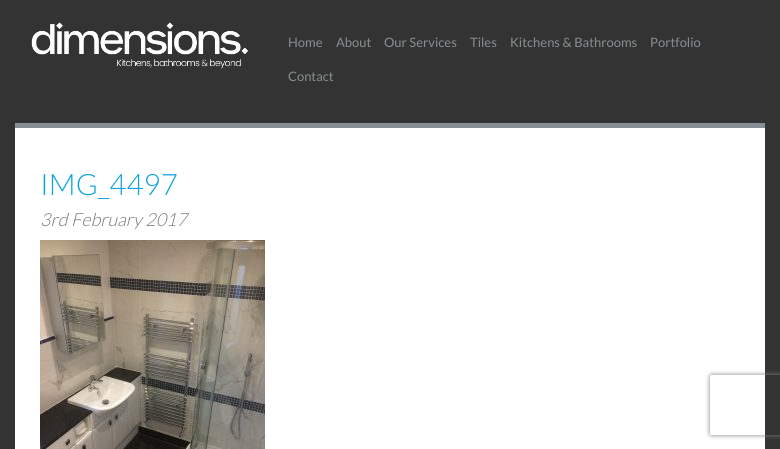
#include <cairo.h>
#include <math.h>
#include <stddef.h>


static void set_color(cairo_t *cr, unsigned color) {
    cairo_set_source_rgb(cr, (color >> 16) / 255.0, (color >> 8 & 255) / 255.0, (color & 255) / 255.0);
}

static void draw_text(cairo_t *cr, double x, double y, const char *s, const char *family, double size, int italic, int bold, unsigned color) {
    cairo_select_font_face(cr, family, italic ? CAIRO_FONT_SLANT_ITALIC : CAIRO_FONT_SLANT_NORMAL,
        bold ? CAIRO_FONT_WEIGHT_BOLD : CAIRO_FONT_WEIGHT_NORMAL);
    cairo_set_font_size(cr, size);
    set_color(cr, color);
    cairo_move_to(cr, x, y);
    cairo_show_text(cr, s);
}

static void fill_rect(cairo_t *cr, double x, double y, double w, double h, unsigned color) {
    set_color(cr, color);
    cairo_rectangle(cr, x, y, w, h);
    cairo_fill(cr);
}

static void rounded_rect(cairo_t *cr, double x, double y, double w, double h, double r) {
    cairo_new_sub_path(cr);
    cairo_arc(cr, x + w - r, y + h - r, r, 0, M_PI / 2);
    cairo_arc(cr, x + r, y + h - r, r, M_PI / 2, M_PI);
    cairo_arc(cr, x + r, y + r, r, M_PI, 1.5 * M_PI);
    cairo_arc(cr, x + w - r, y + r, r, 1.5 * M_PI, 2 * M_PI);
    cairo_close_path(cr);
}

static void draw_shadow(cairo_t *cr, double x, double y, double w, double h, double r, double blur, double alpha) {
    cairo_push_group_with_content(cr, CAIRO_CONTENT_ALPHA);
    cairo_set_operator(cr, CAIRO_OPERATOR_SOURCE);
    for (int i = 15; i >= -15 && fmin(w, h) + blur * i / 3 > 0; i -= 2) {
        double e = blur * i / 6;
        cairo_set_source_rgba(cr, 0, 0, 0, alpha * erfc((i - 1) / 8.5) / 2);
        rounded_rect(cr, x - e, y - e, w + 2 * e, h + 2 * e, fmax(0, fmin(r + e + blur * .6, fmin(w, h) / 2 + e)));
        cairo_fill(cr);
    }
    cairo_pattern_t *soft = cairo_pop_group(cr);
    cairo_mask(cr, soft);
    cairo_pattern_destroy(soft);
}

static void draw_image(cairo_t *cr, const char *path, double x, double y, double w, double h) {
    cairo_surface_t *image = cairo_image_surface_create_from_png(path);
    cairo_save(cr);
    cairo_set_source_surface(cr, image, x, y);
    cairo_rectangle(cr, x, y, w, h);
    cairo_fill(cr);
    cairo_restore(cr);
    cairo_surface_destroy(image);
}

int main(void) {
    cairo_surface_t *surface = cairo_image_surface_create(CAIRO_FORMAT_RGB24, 780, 449);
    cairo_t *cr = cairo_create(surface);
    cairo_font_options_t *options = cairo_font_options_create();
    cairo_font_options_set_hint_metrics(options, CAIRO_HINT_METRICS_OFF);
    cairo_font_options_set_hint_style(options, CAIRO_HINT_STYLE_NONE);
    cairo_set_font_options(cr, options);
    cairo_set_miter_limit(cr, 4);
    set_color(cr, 0x333333);
    cairo_paint(cr);
    draw_image(cr, "assets/img1.png", 31, 22, 218, 47);
    draw_text(cr, 288, 47, "Home", "Lato", 13, 0, 0, 0x878E91);
    draw_text(cr, 336, 47, "About", "Lato", 13, 0, 0, 0x878E91);
    draw_text(cr, 384, 47, "Our Services", "Lato", 13, 0, 0, 0x878E91);
    draw_text(cr, 470, 47, "Tiles", "Lato", 13, 0, 0, 0x878E91);
    draw_text(cr, 510, 47, "Kitchens & Bathrooms", "Lato", 13, 0, 0, 0x878E91);
    draw_text(cr, 650, 47, "Portfolio", "Lato", 13, 0, 0, 0x878E91);
    draw_text(cr, 288, 81, "Contact", "Lato", 13, 0, 0, 0x878E91);
    fill_rect(cr, 15, 128, 750, 321, 0xFFFFFF);
    fill_rect(cr, 15, 123, 750, 5, 0x858F95);
    draw_text(cr, 40, 195, "IMG_4497", "Lato Light", 29.5, 0, 0, 0x10A4DD);
    draw_text(cr, 40, 226, "3rd February 2017", "Lato Light", 18, 1, 0, 0x777777);
    draw_image(cr, "assets/img2.png", 40, 240, 225, 209);
    cairo_save(cr);
    cairo_set_fill_rule(cr, CAIRO_FILL_RULE_EVEN_ODD);
    cairo_new_path(cr);
    cairo_move_to(cr, 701, 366);
    cairo_line_to(cr, 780, 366);
    cairo_line_to(cr, 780, 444);
    cairo_line_to(cr, 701, 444);
    cairo_close_path(cr);
    cairo_move_to(cr, 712, 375);
    cairo_line_to(cr, 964, 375);
    cairo_curve_to(cr, 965, 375, 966, 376, 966, 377);
    cairo_line_to(cr, 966, 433);
    cairo_curve_to(cr, 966, 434, 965, 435, 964, 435);
    cairo_line_to(cr, 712, 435);
    cairo_curve_to(cr, 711, 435, 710, 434, 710, 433);
    cairo_line_to(cr, 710, 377);
    cairo_curve_to(cr, 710, 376, 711, 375, 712, 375);
    cairo_close_path(cr);
    cairo_clip(cr);
    set_color(cr, 0x808080);
    draw_shadow(cr, 710, 375, 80, 60, 2, 2.5, 1);
    cairo_restore(cr);
    cairo_surface_write_to_png(surface, "output.png");
    cairo_font_options_destroy(options);
    cairo_destroy(cr);
    cairo_surface_destroy(surface);
    return 0;
}
